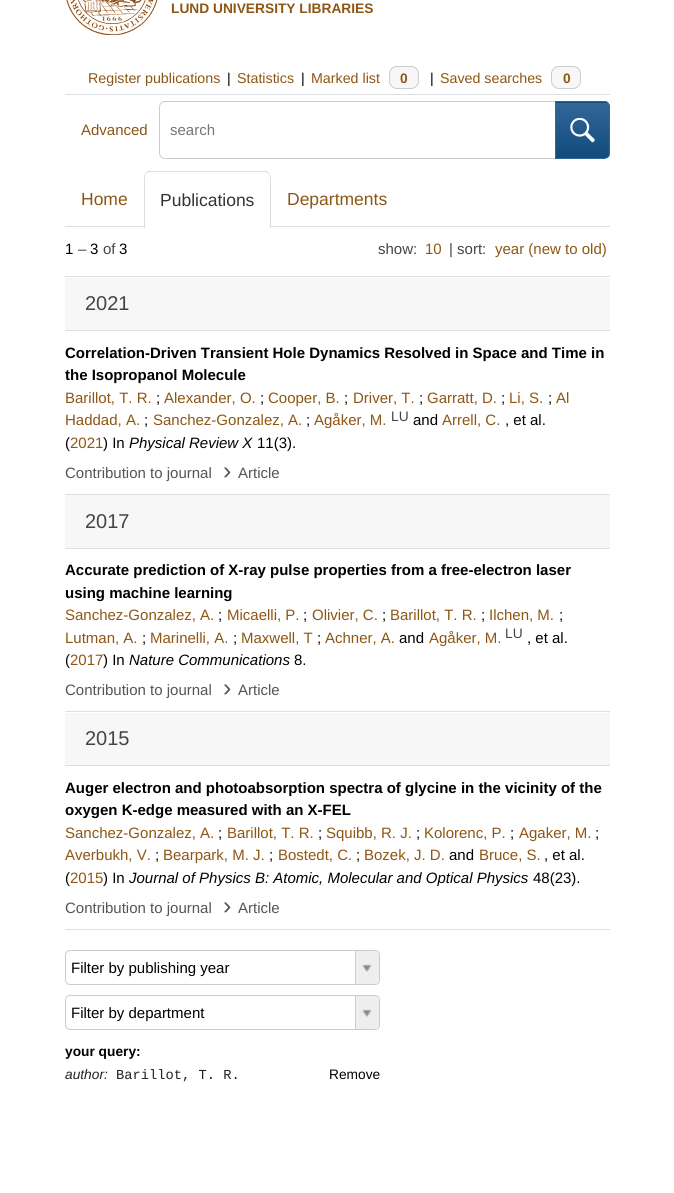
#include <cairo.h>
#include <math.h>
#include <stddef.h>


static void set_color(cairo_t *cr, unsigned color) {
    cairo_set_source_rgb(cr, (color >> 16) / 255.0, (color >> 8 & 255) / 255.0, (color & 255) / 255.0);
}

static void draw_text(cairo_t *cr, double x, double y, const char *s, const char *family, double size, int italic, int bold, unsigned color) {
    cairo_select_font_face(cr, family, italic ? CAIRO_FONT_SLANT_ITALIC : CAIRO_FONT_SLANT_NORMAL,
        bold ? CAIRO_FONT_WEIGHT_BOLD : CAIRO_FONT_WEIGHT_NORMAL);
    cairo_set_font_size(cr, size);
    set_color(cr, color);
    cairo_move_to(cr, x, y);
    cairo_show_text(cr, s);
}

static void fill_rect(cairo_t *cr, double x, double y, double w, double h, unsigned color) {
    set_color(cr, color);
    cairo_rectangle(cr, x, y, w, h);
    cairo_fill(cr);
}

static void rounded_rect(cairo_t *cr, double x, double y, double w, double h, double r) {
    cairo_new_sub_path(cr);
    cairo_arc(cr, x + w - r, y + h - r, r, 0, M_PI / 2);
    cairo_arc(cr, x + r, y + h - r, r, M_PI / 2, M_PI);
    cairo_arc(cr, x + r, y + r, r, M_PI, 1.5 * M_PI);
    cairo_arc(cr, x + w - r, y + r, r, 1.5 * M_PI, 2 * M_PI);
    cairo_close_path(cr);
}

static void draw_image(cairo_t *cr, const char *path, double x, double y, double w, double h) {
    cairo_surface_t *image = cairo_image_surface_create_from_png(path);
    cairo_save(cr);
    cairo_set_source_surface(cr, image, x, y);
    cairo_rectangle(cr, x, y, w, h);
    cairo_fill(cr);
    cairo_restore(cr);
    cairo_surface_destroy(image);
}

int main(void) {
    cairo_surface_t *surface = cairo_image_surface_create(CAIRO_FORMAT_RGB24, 674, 1193);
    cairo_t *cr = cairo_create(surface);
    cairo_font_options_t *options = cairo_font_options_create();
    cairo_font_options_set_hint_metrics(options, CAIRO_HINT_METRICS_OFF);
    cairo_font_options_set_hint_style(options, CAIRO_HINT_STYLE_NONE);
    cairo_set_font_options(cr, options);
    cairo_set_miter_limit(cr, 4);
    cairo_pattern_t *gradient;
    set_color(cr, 0xFFFFFF);
    cairo_paint(cr);
    draw_image(cr, "assets/img1.png", 66, 0, 92, 35);
    draw_text(cr, 171, 13, "LUND UNIVERSITY LIBRARIES", "Liberation Sans", 13.75, 0, 1, 0x8E5614);
    fill_rect(cr, 65, 94, 545, 1, 0xDCDFE4);
    draw_text(cr, 88, 83, "Register publications", "Liberation Sans", 14.25, 0, 0, 0x8E5614);
    draw_text(cr, 227, 83, "|", "Liberation Sans", 14.25, 0, 0, 0x000000);
    draw_text(cr, 237, 83, "Statistics", "Liberation Sans", 14.25, 0, 0, 0x8E5614);
    draw_text(cr, 301, 83, "|", "Liberation Sans", 14.25, 0, 0, 0x000000);
    draw_text(cr, 311, 83, "Marked list", "Liberation Sans", 14.25, 0, 0, 0x8E5614);
    set_color(cr, 0xF7F7F7);
    rounded_rect(cr, 389.5, 66.5, 29, 22, 7.5);
    cairo_fill_preserve(cr);
    set_color(cr, 0xCCCCCC);
    cairo_set_line_width(cr, 1);
    cairo_stroke(cr);
    draw_text(cr, 400, 83, "0", "Liberation Sans", 13.75, 0, 1, 0x8E5614);
    draw_text(cr, 430, 83, "|", "Liberation Sans", 14.25, 0, 0, 0x000000);
    draw_text(cr, 440, 83, "Saved searches", "Liberation Sans", 14.25, 0, 0, 0x8E5614);
    set_color(cr, 0xF7F7F7);
    rounded_rect(cr, 551.5, 66.5, 29, 22, 7.5);
    cairo_fill_preserve(cr);
    set_color(cr, 0xCCCCCC);
    cairo_stroke(cr);
    draw_text(cr, 563, 83, "0", "Liberation Sans", 13.75, 0, 1, 0x8E5614);
    draw_text(cr, 81, 135, "Advanced", "Liberation Sans", 15, 0, 0, 0x8E5614);
    cairo_new_path(cr);
    cairo_move_to(cr, 165, 101.5);
    cairo_line_to(cr, 555.5, 101.5);
    cairo_line_to(cr, 555.5, 158.5);
    cairo_line_to(cr, 165, 158.5);
    cairo_curve_to(cr, 162, 158.5, 159.5, 156, 159.5, 153);
    cairo_line_to(cr, 159.5, 107);
    cairo_curve_to(cr, 159.5, 104, 162, 101.5, 165, 101.5);
    cairo_close_path(cr);
    set_color(cr, 0xCCCCCC);
    cairo_stroke(cr);
    draw_text(cr, 170, 135, "search", "Liberation Sans", 15, 0, 0, 0x757575);
    cairo_save(cr);
    cairo_new_path(cr);
    cairo_move_to(cr, 555, 101);
    cairo_line_to(cr, 604, 101);
    cairo_curve_to(cr, 607.5, 101, 610, 103.5, 610, 107);
    cairo_line_to(cr, 610, 153);
    cairo_curve_to(cr, 610, 156.5, 607.5, 159, 604, 159);
    cairo_line_to(cr, 555, 159);
    cairo_close_path(cr);
    cairo_clip(cr);
    gradient = cairo_pattern_create_linear(583, 48, 583, 103);
    cairo_pattern_add_color_stop_rgba(gradient, 0, 0.2, 0.4, 0.6, 1);
    cairo_pattern_add_color_stop_rgba(gradient, 1, 0.063, 0.294, 0.49, 1);
    cairo_set_source(cr, gradient);
    cairo_pattern_destroy(gradient);
    cairo_rectangle(cr, 555, 101, 55, 2);
    cairo_fill(cr);
    gradient = cairo_pattern_create_linear(583, 103, 583, 158);
    cairo_pattern_add_color_stop_rgba(gradient, 0, 0.2, 0.4, 0.6, 1);
    cairo_pattern_add_color_stop_rgba(gradient, 1, 0.063, 0.294, 0.49, 1);
    cairo_set_source(cr, gradient);
    cairo_pattern_destroy(gradient);
    cairo_rectangle(cr, 556, 103, 54, 55);
    cairo_fill(cr);
    cairo_restore(cr);
    cairo_new_path(cr);
    cairo_move_to(cr, 555.5, 101.5);
    cairo_line_to(cr, 604, 101.5);
    cairo_curve_to(cr, 607, 101.5, 609.5, 104, 609.5, 107);
    cairo_line_to(cr, 609.5, 153);
    cairo_curve_to(cr, 609.5, 156, 607, 158.5, 604, 158.5);
    cairo_line_to(cr, 555.5, 158.5);
    cairo_close_path(cr);
    set_color(cr, 0x336699);
    cairo_stroke(cr);
    draw_image(cr, "assets/img2.png", 570, 118, 25, 25);
    fill_rect(cr, 65, 226, 545, 1, 0xDDDDDD);
    draw_text(cr, 81, 205, "Home", "Liberation Sans", 17.5, 0, 0, 0x8E5614);
    set_color(cr, 0xFFFFFF);
    cairo_new_path(cr);
    cairo_move_to(cr, 150, 171);
    cairo_line_to(cr, 265, 171);
    cairo_curve_to(cr, 268.5, 171, 271, 173.5, 271, 177);
    cairo_line_to(cr, 271, 229);
    cairo_line_to(cr, 144, 229);
    cairo_line_to(cr, 144, 177);
    cairo_curve_to(cr, 144, 173.5, 146.5, 171, 150, 171);
    cairo_close_path(cr);
    cairo_fill(cr);
    set_color(cr, 0xDDDDDD);
    cairo_new_path(cr);
    cairo_move_to(cr, 150, 172);
    cairo_curve_to(cr, 148, 172, 147, 173, 146, 174);
    cairo_line_to(cr, 146, 173);
    cairo_line_to(cr, 148, 171);
    cairo_line_to(cr, 267, 171);
    cairo_line_to(cr, 269, 173);
    cairo_line_to(cr, 269, 174);
    cairo_curve_to(cr, 268, 173, 266, 172, 265, 172);
    cairo_close_path(cr);
    cairo_fill(cr);
    cairo_new_path(cr);
    cairo_move_to(cr, 269, 173);
    cairo_curve_to(cr, 270, 174, 271, 176, 271, 178);
    cairo_line_to(cr, 271, 228);
    cairo_line_to(cr, 270, 228);
    cairo_line_to(cr, 270, 178);
    cairo_curve_to(cr, 270, 176, 270, 175, 269, 174);
    cairo_close_path(cr);
    cairo_fill(cr);
    cairo_new_path(cr);
    cairo_move_to(cr, 144, 228);
    cairo_line_to(cr, 144, 178);
    cairo_curve_to(cr, 144, 176, 145, 174, 146, 173);
    cairo_line_to(cr, 146, 174);
    cairo_curve_to(cr, 146, 175, 145, 176, 145, 178);
    cairo_line_to(cr, 145, 228);
    cairo_close_path(cr);
    cairo_fill(cr);
    draw_text(cr, 160, 206, "Publications", "Liberation Sans", 17.5, 0, 0, 0x333333);
    draw_text(cr, 287, 205, "Departments", "Liberation Sans", 17.5, 0, 0, 0x8E5614);
    draw_text(cr, 65, 254, "1", "Liberation Sans", 15, 0, 0, 0x000000);
    draw_text(cr, 78, 254, "–", "Liberation Sans", 15, 0, 0, 0x444444);
    draw_text(cr, 90, 254, "3", "Liberation Sans", 15, 0, 0, 0x000000);
    draw_text(cr, 103, 254, "of", "Liberation Sans", 15, 0, 0, 0x444444);
    draw_text(cr, 119, 254, "3", "Liberation Sans", 15, 0, 0, 0x000000);
    draw_text(cr, 378, 254, "show:", "Liberation Sans", 15, 0, 0, 0x444444);
    draw_text(cr, 425, 254, "10", "Liberation Sans", 15, 0, 0, 0x8E5614);
    draw_text(cr, 449, 254, "| sort:", "Liberation Sans", 15, 0, 0, 0x444444);
    draw_text(cr, 495, 254, "year (new to old)", "Liberation Sans", 15, 0, 0, 0x8E5614);
    fill_rect(cr, 65, 276, 545, 1, 0xDCDFE4);
    fill_rect(cr, 65, 278, 545, 52, 0xF7F7F7);
    fill_rect(cr, 65, 330, 545, 1, 0xDCDFE4);
    draw_text(cr, 85, 310, "2021", "Liberation Sans", 20, 0, 0, 0x444444);
    fill_rect(cr, 65, 494, 545, 1, 0xDCDFE4);
    draw_text(cr, 65, 358, "Correlation-Driven Transient Hole Dynamics Resolved in Space and Time in", "Liberation Sans", 15, 0, 1, 0x000000);
    draw_text(cr, 65, 380, "the Isopropanol Molecule", "Liberation Sans", 15, 0, 1, 0x000000);
    draw_text(cr, 65, 403, "Barillot, T. R.", "Liberation Sans", 15, 0, 0, 0x8E5614);
    draw_text(cr, 156, 403, ";", "Liberation Sans", 15, 0, 0, 0x000000);
    draw_text(cr, 164, 403, "Alexander, O.", "Liberation Sans", 15, 0, 0, 0x8E5614);
    draw_text(cr, 260, 403, ";", "Liberation Sans", 15, 0, 0, 0x000000);
    draw_text(cr, 268, 403, "Cooper, B.", "Liberation Sans", 15, 0, 0, 0x8E5614);
    draw_text(cr, 344, 403, ";", "Liberation Sans", 15, 0, 0, 0x000000);
    draw_text(cr, 353, 403, "Driver, T.", "Liberation Sans", 15, 0, 0, 0x8E5614);
    draw_text(cr, 419, 403, ";", "Liberation Sans", 15, 0, 0, 0x000000);
    draw_text(cr, 427, 403, "Garratt, D.", "Liberation Sans", 15, 0, 0, 0x8E5614);
    draw_text(cr, 501, 403, ";", "Liberation Sans", 15, 0, 0, 0x000000);
    draw_text(cr, 509, 403, "Li, S.", "Liberation Sans", 15, 0, 0, 0x8E5614);
    draw_text(cr, 548, 403, ";", "Liberation Sans", 15, 0, 0, 0x000000);
    draw_text(cr, 556, 403, "Al", "Liberation Sans", 15, 0, 0, 0x8E5614);
    draw_text(cr, 65, 425, "Haddad, A.", "Liberation Sans", 15, 0, 0, 0x8E5614);
    draw_text(cr, 144, 425, ";", "Liberation Sans", 15, 0, 0, 0x000000);
    draw_text(cr, 153, 425, "Sanchez-Gonzalez, A.", "Liberation Sans", 15, 0, 0, 0x8E5614);
    draw_text(cr, 306, 425, ";", "Liberation Sans", 15, 0, 0, 0x000000);
    draw_text(cr, 314, 425, "Agåker, M.", "Liberation Sans", 15, 0, 0, 0x8E5614);
    draw_text(cr, 391, 421, "LU", "Liberation Sans", 13.75, 0, 0, 0x444444);
    draw_text(cr, 413, 425, "and", "Liberation Sans", 15, 0, 0, 0x000000);
    draw_text(cr, 442, 425, "Arrell, C.", "Liberation Sans", 15, 0, 0, 0x8E5614);
    draw_text(cr, 505, 425, ", et al.", "Liberation Sans", 15, 0, 0, 0x000000);
    draw_text(cr, 65, 448, "(", "Liberation Sans", 15, 0, 0, 0x000000);
    draw_text(cr, 70, 448, "2021", "Liberation Sans", 15, 0, 0, 0x8E5614);
    draw_text(cr, 103, 448, ") In", "Liberation Sans", 15, 0, 0, 0x000000);
    draw_text(cr, 129, 448, "Physical Review X", "Liberation Sans", 15, 1, 0, 0x000000);
    draw_text(cr, 257, 448, "11(3).", "Liberation Sans", 15, 0, 0, 0x000000);
    draw_text(cr, 65, 478, "Contribution to journal", "Liberation Sans", 15, 0, 0, 0x555555);
    draw_text(cr, 223, 479, "›", "Liberation Sans", 25, 0, 0, 0x555555);
    draw_text(cr, 238, 478, "Article", "Liberation Sans", 15, 0, 0, 0x555555);
    fill_rect(cr, 65, 495, 545, 53, 0xF7F7F7);
    fill_rect(cr, 65, 548, 545, 1, 0xDCDFE4);
    draw_text(cr, 85, 528, "2017", "Liberation Sans", 20, 0, 0, 0x444444);
    fill_rect(cr, 65, 711, 545, 1, 0xDCDFE4);
    draw_text(cr, 65, 575, "Accurate prediction of X-ray pulse properties from a free-electron laser", "Liberation Sans", 15, 0, 1, 0x000000);
    draw_text(cr, 65, 598, "using machine learning", "Liberation Sans", 15, 0, 1, 0x000000);
    draw_text(cr, 65, 620, "Sanchez-Gonzalez, A.", "Liberation Sans", 15, 0, 0, 0x8E5614);
    draw_text(cr, 218, 620, ";", "Liberation Sans", 15, 0, 0, 0x000000);
    draw_text(cr, 227, 620, "Micaelli, P.", "Liberation Sans", 15, 0, 0, 0x8E5614);
    draw_text(cr, 303, 620, ";", "Liberation Sans", 15, 0, 0, 0x000000);
    draw_text(cr, 312, 620, "Olivier, C.", "Liberation Sans", 15, 0, 0, 0x8E5614);
    draw_text(cr, 382, 620, ";", "Liberation Sans", 15, 0, 0, 0x000000);
    draw_text(cr, 390, 620, "Barillot, T. R.", "Liberation Sans", 15, 0, 0, 0x8E5614);
    draw_text(cr, 481, 620, ";", "Liberation Sans", 15, 0, 0, 0x000000);
    draw_text(cr, 489, 620, "Ilchen, M.", "Liberation Sans", 15, 0, 0, 0x8E5614);
    draw_text(cr, 559, 620, ";", "Liberation Sans", 15, 0, 0, 0x000000);
    draw_text(cr, 65, 643, "Lutman, A.", "Liberation Sans", 15, 0, 0, 0x8E5614);
    draw_text(cr, 142, 643, ";", "Liberation Sans", 15, 0, 0, 0x000000);
    draw_text(cr, 150, 643, "Marinelli, A.", "Liberation Sans", 15, 0, 0, 0x8E5614);
    draw_text(cr, 233, 643, ";", "Liberation Sans", 15, 0, 0, 0x000000);
    draw_text(cr, 241, 643, "Maxwell, T", "Liberation Sans", 15, 0, 0, 0x8E5614);
    draw_text(cr, 317, 643, ";", "Liberation Sans", 15, 0, 0, 0x000000);
    draw_text(cr, 325, 643, "Achner, A.", "Liberation Sans", 15, 0, 0, 0x8E5614);
    draw_text(cr, 399, 643, "and", "Liberation Sans", 15, 0, 0, 0x000000);
    draw_text(cr, 429, 643, "Agåker, M.", "Liberation Sans", 15, 0, 0, 0x8E5614);
    draw_text(cr, 505, 638, "LU", "Liberation Sans", 13.75, 0, 0, 0x444444);
    draw_text(cr, 527, 643, ", et al.", "Liberation Sans", 15, 0, 0, 0x000000);
    draw_text(cr, 65, 665, "(", "Liberation Sans", 15, 0, 0, 0x000000);
    draw_text(cr, 70, 665, "2017", "Liberation Sans", 15, 0, 0, 0x8E5614);
    draw_text(cr, 103, 665, ") In", "Liberation Sans", 15, 0, 0, 0x000000);
    draw_text(cr, 129, 665, "Nature Communications", "Liberation Sans", 15, 1, 0, 0x000000);
    draw_text(cr, 294, 665, "8.", "Liberation Sans", 15, 0, 0, 0x000000);
    draw_text(cr, 65, 695, "Contribution to journal", "Liberation Sans", 15, 0, 0, 0x555555);
    draw_text(cr, 223, 696, "›", "Liberation Sans", 25, 0, 0, 0x555555);
    draw_text(cr, 238, 695, "Article", "Liberation Sans", 15, 0, 0, 0x555555);
    fill_rect(cr, 65, 713, 545, 52, 0xF7F7F7);
    fill_rect(cr, 65, 765, 545, 1, 0xDCDFE4);
    draw_text(cr, 85, 745, "2015", "Liberation Sans", 20, 0, 0, 0x444444);
    fill_rect(cr, 65, 929, 545, 1, 0xDCDFE4);
    draw_text(cr, 65, 793, "Auger electron and photoabsorption spectra of glycine in the vicinity of the", "Liberation Sans", 15, 0, 1, 0x000000);
    draw_text(cr, 65, 815, "oxygen K-edge measured with an X-FEL", "Liberation Sans", 15, 0, 1, 0x000000);
    draw_text(cr, 65, 838, "Sanchez-Gonzalez, A.", "Liberation Sans", 15, 0, 0, 0x8E5614);
    draw_text(cr, 218, 838, ";", "Liberation Sans", 15, 0, 0, 0x000000);
    draw_text(cr, 227, 838, "Barillot, T. R.", "Liberation Sans", 15, 0, 0, 0x8E5614);
    draw_text(cr, 318, 838, ";", "Liberation Sans", 15, 0, 0, 0x000000);
    draw_text(cr, 326, 838, "Squibb, R. J.", "Liberation Sans", 15, 0, 0, 0x8E5614);
    draw_text(cr, 416, 838, ";", "Liberation Sans", 15, 0, 0, 0x000000);
    draw_text(cr, 424, 838, "Kolorenc, P.", "Liberation Sans", 15, 0, 0, 0x8E5614);
    draw_text(cr, 510, 838, ";", "Liberation Sans", 15, 0, 0, 0x000000);
    draw_text(cr, 519, 838, "Agaker, M.", "Liberation Sans", 15, 0, 0, 0x8E5614);
    draw_text(cr, 595, 838, ";", "Liberation Sans", 15, 0, 0, 0x000000);
    draw_text(cr, 65, 860, "Averbukh, V.", "Liberation Sans", 15, 0, 0, 0x8E5614);
    draw_text(cr, 155, 860, ";", "Liberation Sans", 15, 0, 0, 0x000000);
    draw_text(cr, 163, 860, "Bearpark, M. J.", "Liberation Sans", 15, 0, 0, 0x8E5614);
    draw_text(cr, 269, 860, ";", "Liberation Sans", 15, 0, 0, 0x000000);
    draw_text(cr, 278, 860, "Bostedt, C.", "Liberation Sans", 15, 0, 0, 0x8E5614);
    draw_text(cr, 356, 860, ";", "Liberation Sans", 15, 0, 0, 0x000000);
    draw_text(cr, 364, 860, "Bozek, J. D.", "Liberation Sans", 15, 0, 0, 0x8E5614);
    draw_text(cr, 449, 860, "and", "Liberation Sans", 15, 0, 0, 0x000000);
    draw_text(cr, 479, 860, "Bruce, S.", "Liberation Sans", 15, 0, 0, 0x8E5614);
    draw_text(cr, 544, 860, ", et al.", "Liberation Sans", 15, 0, 0, 0x000000);
    draw_text(cr, 65, 883, "(", "Liberation Sans", 15, 0, 0, 0x000000);
    draw_text(cr, 70, 883, "2015", "Liberation Sans", 15, 0, 0, 0x8E5614);
    draw_text(cr, 103, 883, ") In", "Liberation Sans", 15, 0, 0, 0x000000);
    draw_text(cr, 129, 883, "Journal of Physics B: Atomic, Molecular and Optical Physics", "Liberation Sans", 15, 1, 0, 0x000000);
    draw_text(cr, 533, 883, "48(23).", "Liberation Sans", 15, 0, 0, 0x000000);
    draw_text(cr, 65, 913, "Contribution to journal", "Liberation Sans", 15, 0, 0, 0x555555);
    draw_text(cr, 223, 914, "›", "Liberation Sans", 25, 0, 0, 0x555555);
    draw_text(cr, 238, 913, "Article", "Liberation Sans", 15, 0, 0, 0x555555);
    rounded_rect(cr, 65.5, 950.5, 314, 34, 4.5);
    set_color(cr, 0xCCCCCC);
    cairo_stroke(cr);
    draw_text(cr, 71, 973, "Filter by publishing year", "Liberation Sans", 15, 0, 0, 0x000000);
    cairo_save(cr);
    rounded_rect(cr, 66, 951, 313, 33, 4);
    cairo_clip(cr);
    set_color(cr, 0xEEEEEE);
    cairo_new_path(cr);
    cairo_move_to(cr, 355, 951);
    cairo_line_to(cr, 374, 951);
    cairo_curve_to(cr, 377, 951, 379, 953, 379, 956);
    cairo_line_to(cr, 379, 979);
    cairo_curve_to(cr, 379, 982, 377, 984, 374, 984);
    cairo_line_to(cr, 355, 984);
    cairo_close_path(cr);
    cairo_fill(cr);
    cairo_restore(cr);
    fill_rect(cr, 355, 951, 1, 33, 0xCCCCCC);
    draw_image(cr, "assets/img3.png", 362, 964, 10, 8);
    rounded_rect(cr, 65.5, 995.5, 314, 34, 4.5);
    cairo_stroke(cr);
    draw_text(cr, 71, 1018, "Filter by department", "Liberation Sans", 15, 0, 0, 0x000000);
    cairo_save(cr);
    rounded_rect(cr, 66, 996, 313, 33, 4);
    cairo_clip(cr);
    set_color(cr, 0xEEEEEE);
    cairo_new_path(cr);
    cairo_move_to(cr, 355, 996);
    cairo_line_to(cr, 374, 996);
    cairo_curve_to(cr, 377, 996, 379, 998, 379, 1001);
    cairo_line_to(cr, 379, 1024);
    cairo_curve_to(cr, 379, 1027, 377, 1029, 374, 1029);
    cairo_line_to(cr, 355, 1029);
    cairo_close_path(cr);
    cairo_fill(cr);
    cairo_restore(cr);
    fill_rect(cr, 355, 996, 1, 33, 0xCCCCCC);
    draw_image(cr, "assets/img3.png", 362, 1009, 10, 8);
    draw_text(cr, 65, 1056, "your query:", "Liberation Sans", 13.75, 0, 1, 0x000000);
    draw_text(cr, 65, 1079, "author:", "Liberation Sans", 13.75, 1, 0, 0x222222);
    draw_text(cr, 116, 1079, "Barillot, T. R.", "Liberation Mono", 13.75, 0, 0, 0x222222);
    draw_text(cr, 329, 1079, "Remove", "Liberation Sans", 13.75, 0, 0, 0x000000);
    cairo_surface_write_to_png(surface, "output.png");
    cairo_font_options_destroy(options);
    cairo_destroy(cr);
    cairo_surface_destroy(surface);
    return 0;
}
